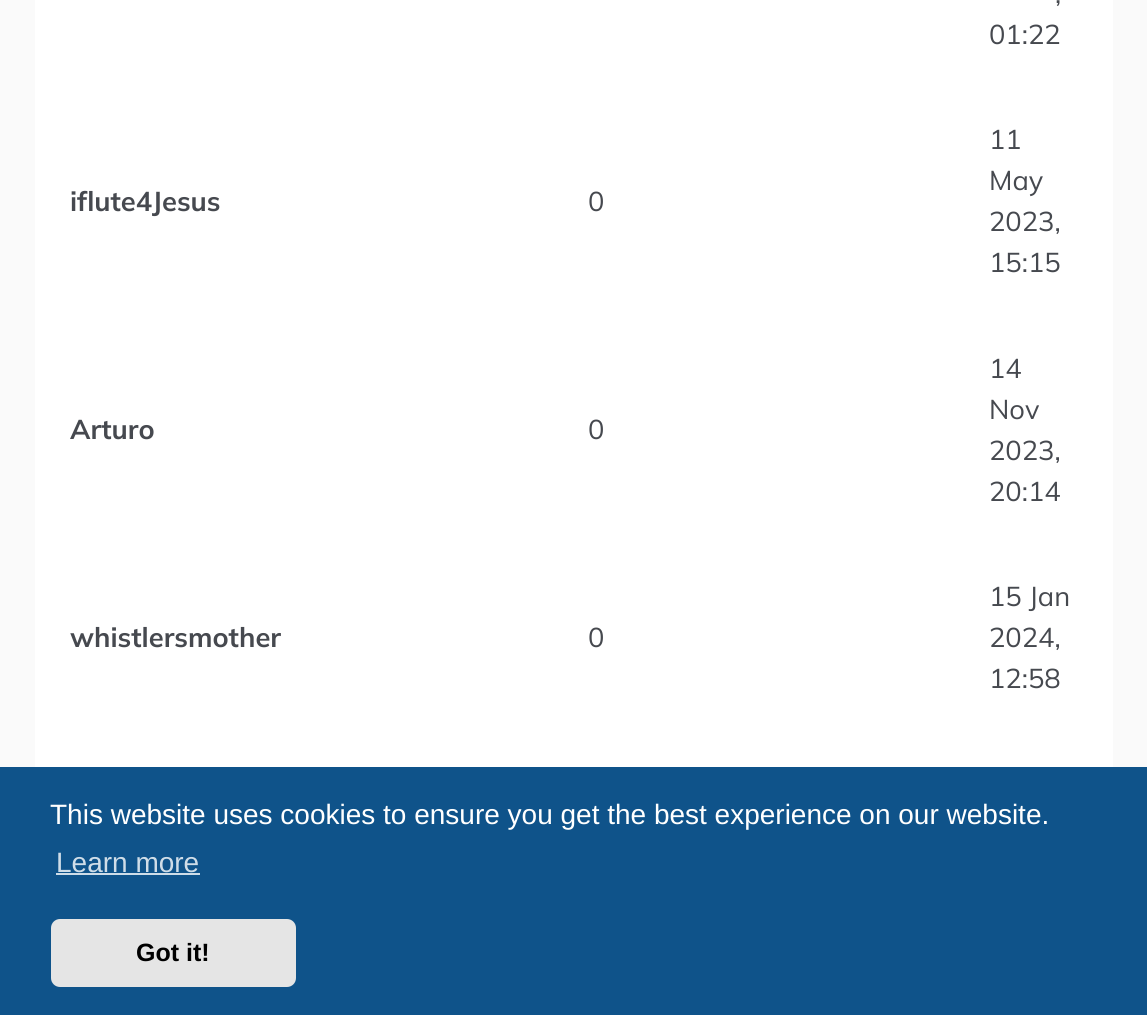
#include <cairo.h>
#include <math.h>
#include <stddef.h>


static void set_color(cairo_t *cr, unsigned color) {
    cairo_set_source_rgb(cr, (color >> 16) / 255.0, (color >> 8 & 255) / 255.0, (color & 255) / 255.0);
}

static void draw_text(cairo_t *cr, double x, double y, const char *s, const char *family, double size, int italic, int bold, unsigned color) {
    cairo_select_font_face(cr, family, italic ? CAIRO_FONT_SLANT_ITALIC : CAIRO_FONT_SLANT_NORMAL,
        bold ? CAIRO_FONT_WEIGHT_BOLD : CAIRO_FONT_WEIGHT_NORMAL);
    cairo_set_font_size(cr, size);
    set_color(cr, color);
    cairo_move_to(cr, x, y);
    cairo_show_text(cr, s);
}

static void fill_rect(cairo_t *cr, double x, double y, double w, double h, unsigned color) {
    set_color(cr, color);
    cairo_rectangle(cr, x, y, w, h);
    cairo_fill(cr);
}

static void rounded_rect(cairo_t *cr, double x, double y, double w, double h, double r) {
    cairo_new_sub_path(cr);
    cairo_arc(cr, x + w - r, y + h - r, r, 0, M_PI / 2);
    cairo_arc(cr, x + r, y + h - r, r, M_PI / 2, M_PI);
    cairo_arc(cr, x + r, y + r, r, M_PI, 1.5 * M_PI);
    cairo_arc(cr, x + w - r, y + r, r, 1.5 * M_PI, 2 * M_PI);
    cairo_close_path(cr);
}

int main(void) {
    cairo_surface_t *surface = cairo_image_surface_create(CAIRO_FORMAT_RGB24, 1147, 1015);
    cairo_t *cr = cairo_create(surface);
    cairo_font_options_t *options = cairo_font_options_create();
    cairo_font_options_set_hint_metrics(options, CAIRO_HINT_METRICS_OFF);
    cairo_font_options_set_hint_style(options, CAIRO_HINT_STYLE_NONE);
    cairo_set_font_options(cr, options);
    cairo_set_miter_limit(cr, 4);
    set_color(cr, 0xFAFAFA);
    cairo_paint(cr);
    fill_rect(cr, 35, 0, 1078, 767, 0xFFFFFF);
    draw_text(cr, 1055, 3, ",", "Mulish", 27.25, 0, 0, 0x46494F);
    draw_text(cr, 989, 44, "01:22", "Mulish", 27.25, 0, 0, 0x46494F);
    draw_text(cr, 70, 211, "iflute4Jesus", "Mulish", 27.25, 0, 1, 0x46494F);
    draw_text(cr, 588, 211, "0", "Mulish", 27.25, 0, 0, 0x46494F);
    draw_text(cr, 989, 149, "11", "Mulish", 27.25, 0, 0, 0x46494F);
    draw_text(cr, 989, 190, "May", "Mulish", 27.25, 0, 0, 0x46494F);
    draw_text(cr, 989, 231, "2023,", "Mulish", 27.25, 0, 0, 0x46494F);
    draw_text(cr, 989, 272, "15:15", "Mulish", 27.25, 0, 0, 0x46494F);
    draw_text(cr, 70, 439, "Arturo", "Mulish", 27.25, 0, 1, 0x46494F);
    draw_text(cr, 588, 439, "0", "Mulish", 27.25, 0, 0, 0x46494F);
    draw_text(cr, 989, 378, "14", "Mulish", 27.25, 0, 0, 0x46494F);
    draw_text(cr, 989, 419, "Nov", "Mulish", 27.25, 0, 0, 0x46494F);
    draw_text(cr, 989, 460, "2023,", "Mulish", 27.25, 0, 0, 0x46494F);
    draw_text(cr, 989, 501, "20:14", "Mulish", 27.25, 0, 0, 0x46494F);
    draw_text(cr, 70, 647, "whistlersmother", "Mulish", 27.25, 0, 1, 0x46494F);
    draw_text(cr, 588, 647, "0", "Mulish", 27.25, 0, 0, 0x46494F);
    draw_text(cr, 989, 606, "15 Jan", "Mulish", 27.25, 0, 0, 0x46494F);
    draw_text(cr, 989, 647, "2024,", "Mulish", 27.25, 0, 0, 0x46494F);
    draw_text(cr, 989, 688, "12:58", "Mulish", 27.25, 0, 0, 0x46494F);
    fill_rect(cr, 0, 767, 1147, 248, 0x0F538A);
    draw_text(cr, 50, 824, "This website uses cookies to ensure you get the best experience on our website.", "Liberation Sans", 28, 0, 0, 0xFFFFFF);
    draw_text(cr, 56, 872, "Learn more", "Liberation Sans", 28, 0, 0, 0xCFDDE8);
    fill_rect(cr, 56, 873, 144, 2, 0xCFDDE8);
    set_color(cr, 0xE5E5E5);
    rounded_rect(cr, 51, 919, 245, 68, 9);
    cairo_fill(cr);
    draw_text(cr, 136, 961, "Got it!", "Liberation Sans", 25, 0, 1, 0x000000);
    cairo_surface_write_to_png(surface, "output.png");
    cairo_font_options_destroy(options);
    cairo_destroy(cr);
    cairo_surface_destroy(surface);
    return 0;
}
